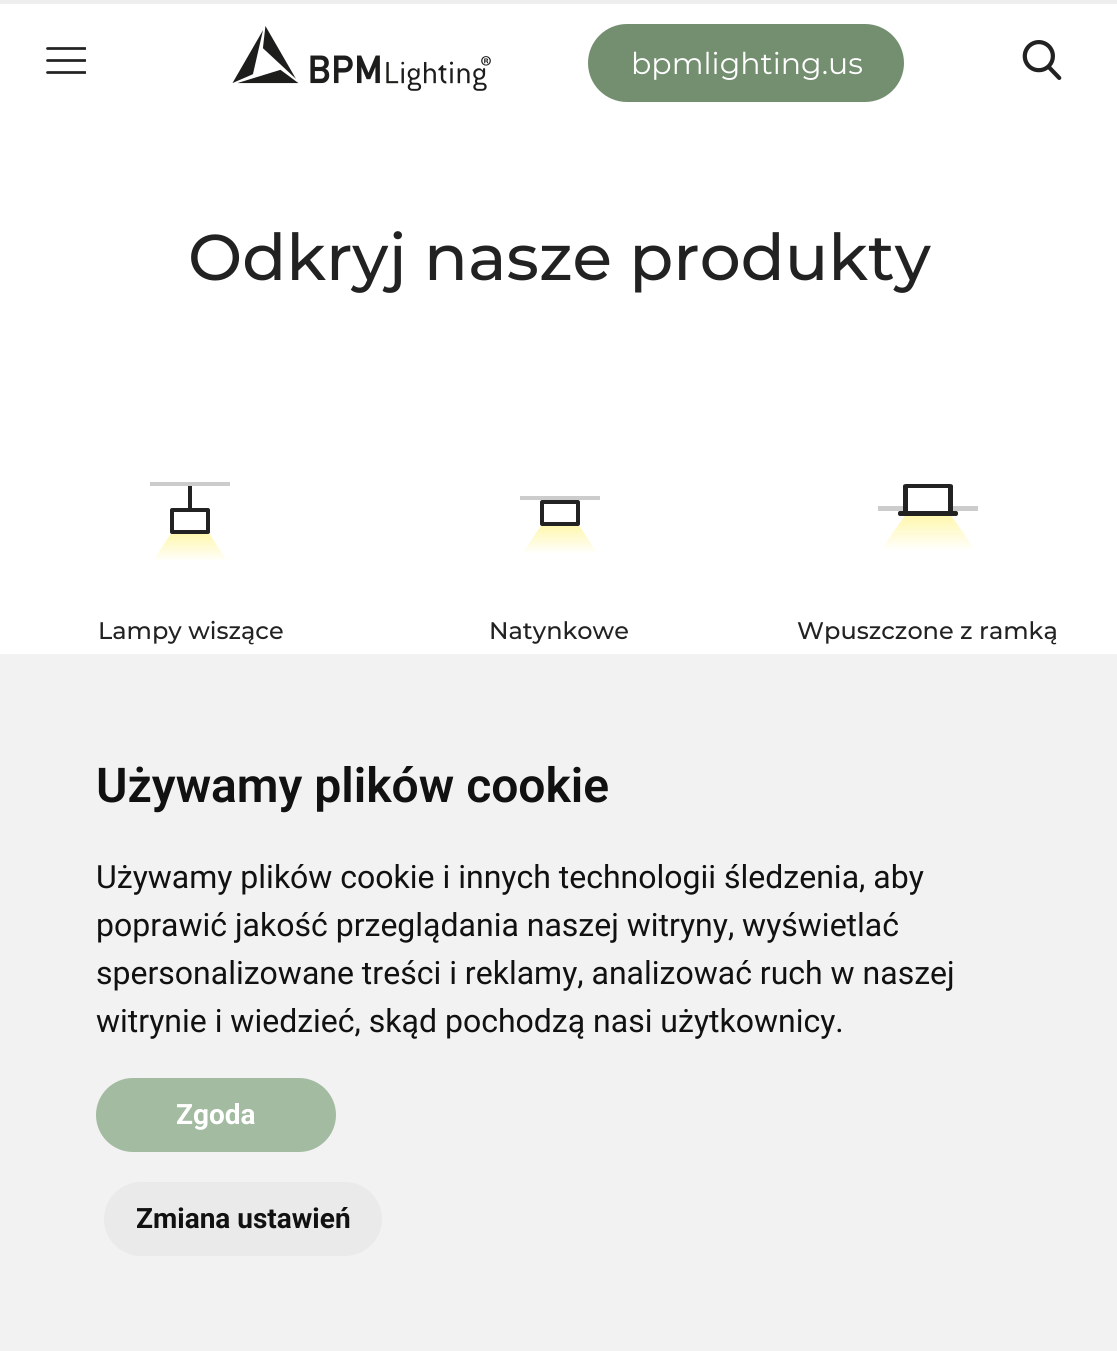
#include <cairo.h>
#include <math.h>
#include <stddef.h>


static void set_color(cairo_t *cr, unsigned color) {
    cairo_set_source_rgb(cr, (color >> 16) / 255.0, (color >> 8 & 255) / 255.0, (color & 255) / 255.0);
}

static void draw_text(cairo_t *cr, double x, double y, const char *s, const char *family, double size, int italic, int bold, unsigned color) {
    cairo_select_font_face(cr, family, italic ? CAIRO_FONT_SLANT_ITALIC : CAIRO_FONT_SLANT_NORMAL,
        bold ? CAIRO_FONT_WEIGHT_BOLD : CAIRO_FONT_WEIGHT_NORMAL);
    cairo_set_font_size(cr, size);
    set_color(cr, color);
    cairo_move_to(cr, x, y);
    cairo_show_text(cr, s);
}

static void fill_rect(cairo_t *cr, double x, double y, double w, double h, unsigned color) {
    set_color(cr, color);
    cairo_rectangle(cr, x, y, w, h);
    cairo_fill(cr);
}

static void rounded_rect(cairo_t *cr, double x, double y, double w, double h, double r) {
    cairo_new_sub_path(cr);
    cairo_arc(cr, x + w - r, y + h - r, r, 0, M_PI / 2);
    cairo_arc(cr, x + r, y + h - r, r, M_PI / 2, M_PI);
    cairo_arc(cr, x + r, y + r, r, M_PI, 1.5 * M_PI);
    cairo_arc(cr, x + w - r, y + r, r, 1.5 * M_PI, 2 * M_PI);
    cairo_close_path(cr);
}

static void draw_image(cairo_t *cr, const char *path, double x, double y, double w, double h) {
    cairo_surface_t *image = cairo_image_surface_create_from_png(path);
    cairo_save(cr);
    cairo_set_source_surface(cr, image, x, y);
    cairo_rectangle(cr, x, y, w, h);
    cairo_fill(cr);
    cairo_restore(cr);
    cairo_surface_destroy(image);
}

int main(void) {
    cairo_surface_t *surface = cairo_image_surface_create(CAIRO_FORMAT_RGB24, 1117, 1351);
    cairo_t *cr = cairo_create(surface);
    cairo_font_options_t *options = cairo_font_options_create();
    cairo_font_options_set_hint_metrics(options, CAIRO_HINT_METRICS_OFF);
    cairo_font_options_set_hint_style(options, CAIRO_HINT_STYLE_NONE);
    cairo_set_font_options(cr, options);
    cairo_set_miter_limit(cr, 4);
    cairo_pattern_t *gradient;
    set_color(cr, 0xFFFFFF);
    cairo_paint(cr);
    fill_rect(cr, 0, 0, 1117, 4, 0xEEEEEE);
    cairo_save(cr);
    cairo_rectangle(cr, 46, 40, 40, 42);
    cairo_clip(cr);
    cairo_new_path(cr);
    cairo_move_to(cr, 47.5, 60.5);
    cairo_line_to(cr, 85.5, 60.5);
    cairo_move_to(cr, 47.5, 48.5);
    cairo_line_to(cr, 85.5, 48.5);
    cairo_move_to(cr, 47.5, 72.5);
    cairo_line_to(cr, 85.5, 72.5);
    set_color(cr, 0x222222);
    cairo_set_line_width(cr, 2.7);
    cairo_set_line_cap(cr, CAIRO_LINE_CAP_ROUND);
    cairo_stroke(cr);
    cairo_restore(cr);
    draw_image(cr, "assets/img1.png", 232, 26, 259, 65);
    set_color(cr, 0x738F70);
    rounded_rect(cr, 588, 24, 316, 78, 39);
    cairo_fill(cr);
    draw_text(cr, 631, 74, "bpmlighting.us", "Montserrat", 30, 0, 0, 0xFFFFFF);
    draw_image(cr, "assets/img2.png", 1022, 40, 40, 40);
    draw_text(cr, 188, 280, "Odkryj nasze produkty", "Montserrat Medium", 64.5, 0, 0, 0x222222);
    draw_image(cr, "assets/img3.png", 150, 482, 80, 78);
    draw_text(cr, 98, 639, "Lampy wiszące", "Montserrat Medium", 24, 0, 0, 0x222222);
    gradient = cairo_pattern_create_linear(560, 524, 560, 554);
    cairo_pattern_add_color_stop_rgba(gradient, 0, 1, 0.969, 0.667, 1);
    cairo_pattern_add_color_stop_rgba(gradient, 1, 1, 1, 1, 1);
    cairo_set_source(cr, gradient);
    cairo_pattern_destroy(gradient);
    cairo_set_fill_rule(cr, CAIRO_FILL_RULE_EVEN_ODD);
    cairo_new_path(cr);
    cairo_move_to(cr, 542, 524);
    cairo_line_to(cr, 578, 524);
    cairo_line_to(cr, 598, 554);
    cairo_line_to(cr, 522, 554);
    cairo_close_path(cr);
    cairo_fill(cr);
    fill_rect(cr, 520, 496, 80, 4, 0xCCCCCC);
    set_color(cr, 0x222222);
    cairo_set_fill_rule(cr, CAIRO_FILL_RULE_WINDING);
    cairo_new_path(cr);
    cairo_move_to(cr, 544, 504);
    cairo_line_to(cr, 544, 522);
    cairo_line_to(cr, 576, 522);
    cairo_line_to(cr, 576, 504);
    cairo_close_path(cr);
    cairo_move_to(cr, 542, 500);
    cairo_line_to(cr, 578, 500);
    cairo_curve_to(cr, 579, 500, 580, 501, 580, 502);
    cairo_line_to(cr, 580, 524);
    cairo_curve_to(cr, 580, 525, 579, 526, 578, 526);
    cairo_line_to(cr, 542, 526);
    cairo_curve_to(cr, 541, 526, 540, 525, 540, 524);
    cairo_line_to(cr, 540, 502);
    cairo_curve_to(cr, 540, 501, 541, 500, 542, 500);
    cairo_close_path(cr);
    cairo_fill(cr);
    draw_text(cr, 489, 639, "Natynkowe", "Montserrat Medium", 24, 0, 0, 0x222222);
    cairo_save(cr);
    cairo_rectangle(cr, 878, 482, 100, 68);
    cairo_clip(cr);
    gradient = cairo_pattern_create_linear(928, 514, 928, 551);
    cairo_pattern_add_color_stop_rgba(gradient, 0, 1, 0.969, 0.667, 1);
    cairo_pattern_add_color_stop_rgba(gradient, 1, 1, 1, 1, 1);
    cairo_set_source(cr, gradient);
    cairo_pattern_destroy(gradient);
    cairo_set_fill_rule(cr, CAIRO_FILL_RULE_EVEN_ODD);
    cairo_new_path(cr);
    cairo_move_to(cr, 906, 514);
    cairo_line_to(cr, 950, 514);
    cairo_line_to(cr, 976, 551);
    cairo_line_to(cr, 880, 551);
    cairo_close_path(cr);
    cairo_fill(cr);
    cairo_restore(cr);
    fill_rect(cr, 878, 506, 28, 5, 0xCCCCCC);
    fill_rect(cr, 951, 506, 27, 5, 0xCCCCCC);
    set_color(cr, 0x222222);
    cairo_new_path(cr);
    cairo_move_to(cr, 908, 488);
    cairo_line_to(cr, 908, 511);
    cairo_line_to(cr, 948, 511);
    cairo_line_to(cr, 948, 488);
    cairo_close_path(cr);
    cairo_move_to(cr, 906, 484);
    cairo_line_to(cr, 950, 484);
    cairo_curve_to(cr, 952, 484, 953, 485, 953, 486);
    cairo_line_to(cr, 953, 514);
    cairo_curve_to(cr, 953, 515, 952, 516, 950, 516);
    cairo_line_to(cr, 906, 516);
    cairo_curve_to(cr, 904, 516, 903, 515, 903, 514);
    cairo_line_to(cr, 903, 486);
    cairo_curve_to(cr, 903, 485, 904, 484, 906, 484);
    cairo_close_path(cr);
    cairo_fill(cr);
    rounded_rect(cr, 898, 511, 60, 5, 2);
    cairo_fill(cr);
    draw_text(cr, 797, 639, "Wpuszczone z ramką", "Montserrat Medium", 24, 0, 0, 0x222222);
    fill_rect(cr, 0, 654, 1117, 697, 0xF2F2F2);
    draw_text(cr, 96, 802, "Używamy plików cookie", "Roboto SemiBold", 48, 0, 0, 0x111111);
    draw_text(cr, 96, 888, "Używamy plików cookie i innych technologii śledzenia, aby", "Roboto", 32, 0, 0, 0x111111);
    draw_text(cr, 96, 936, "poprawić jakość przeglądania naszej witryny, wyświetlać", "Roboto", 32, 0, 0, 0x111111);
    draw_text(cr, 96, 984, "spersonalizowane treści i reklamy, analizować ruch w naszej", "Roboto", 32, 0, 0, 0x111111);
    draw_text(cr, 96, 1032, "witrynie i wiedzieć, skąd pochodzą nasi użytkownicy.", "Roboto", 32, 0, 0, 0x111111);
    set_color(cr, 0xA3BBA1);
    rounded_rect(cr, 96, 1078, 240, 74, 37);
    cairo_fill(cr);
    draw_text(cr, 176, 1124, "Zgoda", "Roboto", 28, 0, 1, 0xFFFFFF);
    set_color(cr, 0xEAEAEA);
    rounded_rect(cr, 104, 1182, 278, 74, 37);
    cairo_fill(cr);
    draw_text(cr, 136, 1228, "Zmiana ustawień", "Roboto", 28, 0, 1, 0x111111);
    cairo_surface_write_to_png(surface, "output.png");
    cairo_font_options_destroy(options);
    cairo_destroy(cr);
    cairo_surface_destroy(surface);
    return 0;
}
